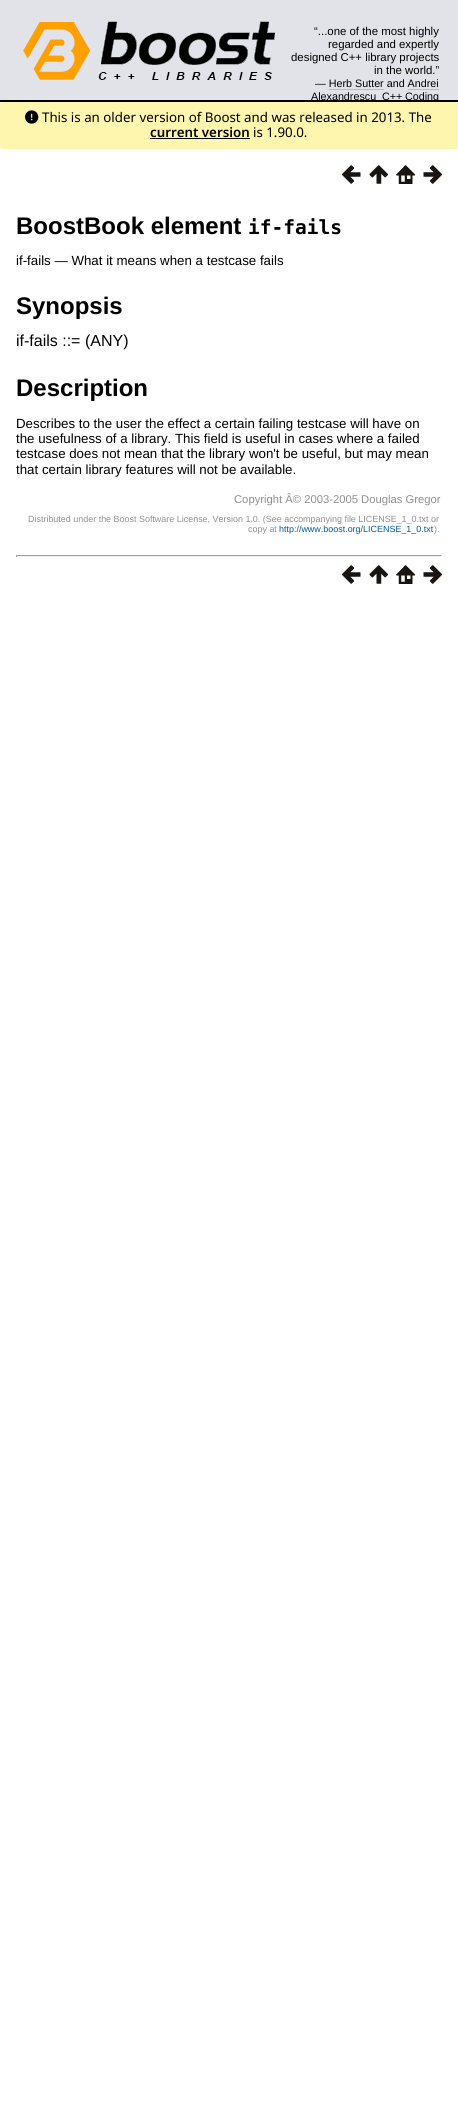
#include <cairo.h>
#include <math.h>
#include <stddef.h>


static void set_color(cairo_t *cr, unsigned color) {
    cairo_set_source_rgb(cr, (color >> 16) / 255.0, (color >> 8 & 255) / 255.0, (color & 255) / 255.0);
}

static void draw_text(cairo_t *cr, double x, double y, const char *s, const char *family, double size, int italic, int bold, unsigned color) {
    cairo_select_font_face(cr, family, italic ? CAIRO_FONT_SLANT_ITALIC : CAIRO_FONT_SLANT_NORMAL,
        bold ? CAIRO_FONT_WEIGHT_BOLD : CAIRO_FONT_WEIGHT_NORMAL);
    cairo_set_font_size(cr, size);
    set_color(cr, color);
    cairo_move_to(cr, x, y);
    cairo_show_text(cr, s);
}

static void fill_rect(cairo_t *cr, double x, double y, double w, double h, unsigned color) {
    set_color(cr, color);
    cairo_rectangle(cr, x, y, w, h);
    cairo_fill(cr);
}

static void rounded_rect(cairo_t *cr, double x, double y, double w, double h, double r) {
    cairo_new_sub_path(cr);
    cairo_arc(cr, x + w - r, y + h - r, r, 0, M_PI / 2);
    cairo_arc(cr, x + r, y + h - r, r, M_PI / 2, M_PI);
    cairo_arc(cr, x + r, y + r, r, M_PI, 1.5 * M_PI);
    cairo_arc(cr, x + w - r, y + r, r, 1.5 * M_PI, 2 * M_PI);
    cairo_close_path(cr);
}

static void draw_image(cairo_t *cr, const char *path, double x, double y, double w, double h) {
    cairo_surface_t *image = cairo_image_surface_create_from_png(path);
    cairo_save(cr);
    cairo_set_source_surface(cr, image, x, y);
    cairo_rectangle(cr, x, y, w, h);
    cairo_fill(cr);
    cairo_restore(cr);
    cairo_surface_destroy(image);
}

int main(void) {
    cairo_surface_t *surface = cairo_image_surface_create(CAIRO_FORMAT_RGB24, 458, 2101);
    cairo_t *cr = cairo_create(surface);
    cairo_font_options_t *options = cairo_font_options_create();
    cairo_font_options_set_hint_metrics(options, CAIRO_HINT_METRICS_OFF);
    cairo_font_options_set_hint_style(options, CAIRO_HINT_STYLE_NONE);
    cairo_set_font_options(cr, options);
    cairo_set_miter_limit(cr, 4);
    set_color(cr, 0xFFFFFF);
    cairo_paint(cr);
    fill_rect(cr, 0, 0, 458, 100, 0xE1E3E8);
    fill_rect(cr, 0, 100, 458, 2, 0x000000);
    draw_image(cr, "assets/img1.png", 23, 21, 252, 59);
    draw_text(cr, 314, 35, "“...one of the most highly", "Liberation Sans", 11.4, 0, 0, 0x000000);
    draw_text(cr, 328, 48, "regarded and expertly", "Liberation Sans", 11.4, 0, 0, 0x000000);
    draw_text(cr, 291, 61, "designed C++ library projects", "Liberation Sans", 11.4, 0, 0, 0x000000);
    draw_text(cr, 374, 74, "in the world.”", "Liberation Sans", 11.4, 0, 0, 0x000000);
    draw_text(cr, 315, 87, "— Herb Sutter and Andrei", "Liberation Sans", 10.75, 0, 0, 0x000000);
    fill_rect(cr, 329, 89, 55, 1, 0xBBBBBB);
    draw_text(cr, 311, 100, "Alexandrescu", "Liberation Sans", 10.75, 0, 0, 0x000000);
    fill_rect(cr, 408, 89, 31, 1, 0xBBBBBB);
    draw_text(cr, 382, 100, "C++", "Liberation Sans", 10.75, 0, 0, 0x000000);
    cairo_save(cr);
    cairo_rectangle(cr, 0, 0, 458, 100);
    cairo_clip(cr);
    draw_text(cr, 405, 100, "Coding", "Liberation Sans", 10.75, 0, 0, 0x000000);
    cairo_restore(cr);
    set_color(cr, 0xFEF5AE);
    rounded_rect(cr, 0, 102, 458, 47, 2);
    cairo_fill(cr);
    draw_image(cr, "assets/img2.png", 25, 110, 14, 14);
    draw_text(cr, 42, 122, "This is an older version of Boost and was released in 2013. The", "Noto Sans", 13.3, 0, 0, 0x000000);
    draw_text(cr, 150, 137, "current version", "Noto Sans SemiBold", 13.3, 0, 0, 0x000000);
    fill_rect(cr, 150, 138, 100, 1, 0x000000);
    draw_text(cr, 253, 137, "is 1.90.0.", "Noto Sans", 13.3, 0, 0, 0x000000);
    draw_image(cr, "assets/img3.png", 342, 165, 19, 19);
    draw_image(cr, "assets/img4.png", 369, 165, 19, 19);
    draw_image(cr, "assets/img5.png", 396, 165, 19, 19);
    draw_image(cr, "assets/img6.png", 423, 165, 19, 19);
    draw_text(cr, 16, 234, "BoostBook element", "Liberation Sans", 24, 0, 1, 0x000000);
    draw_text(cr, 248, 234, "if-fails", "DejaVu Sans Mono", 19.5, 0, 1, 0x000000);
    draw_text(cr, 16, 265, "if-fails — What it means when a testcase fails", "Liberation Sans", 13.3, 0, 0, 0x000000);
    draw_text(cr, 16, 314, "Synopsis", "Liberation Sans", 24, 0, 1, 0x000000);
    draw_text(cr, 16, 346, "if-fails ::= (ANY)", "Liberation Sans", 16, 0, 0, 0x000000);
    draw_text(cr, 16, 396, "Description", "Liberation Sans", 24, 0, 1, 0x000000);
    draw_text(cr, 16, 428, "Describes to the user the effect a certain failing testcase will have on", "Liberation Sans", 13.3, 0, 0, 0x000000);
    draw_text(cr, 16, 443, "the usefulness of a library. This field is useful in cases where a failed", "Liberation Sans", 13.3, 0, 0, 0x000000);
    draw_text(cr, 16, 458, "testcase does not mean that the library won't be useful, but may mean", "Liberation Sans", 13.3, 0, 0, 0x000000);
    draw_text(cr, 16, 474, "that certain library features will not be available.", "Liberation Sans", 13.3, 0, 0, 0x000000);
    draw_text(cr, 234, 503, "Copyright Â© 2003-2005 Douglas Gregor", "Liberation Sans", 11.25, 0, 0, 0x8F8F8F);
    draw_text(cr, 28, 522, "Distributed under the Boost Software License, Version 1.0. (See accompanying file LICENSE_1_0.txt or", "Liberation Sans", 8.95, 0, 0, 0x8F8F8F);
    draw_text(cr, 248, 532, "copy at", "Liberation Sans", 8.95, 0, 0, 0x8F8F8F);
    draw_text(cr, 279, 532, "http://www.boost.org/LICENSE_1_0.txt", "Liberation Sans", 8.95, 0, 0, 0x005A9C);
    draw_text(cr, 434, 532, ").", "Liberation Sans", 8.95, 0, 0, 0x8F8F8F);
    fill_rect(cr, 16, 555, 426, 1, 0x9F9F9F);
    fill_rect(cr, 441, 555, 1, 2, 0xEEEEEE);
    fill_rect(cr, 16, 556, 426, 1, 0xEEEEEE);
    fill_rect(cr, 16, 555, 1, 2, 0x9F9F9F);
    draw_image(cr, "assets/img3.png", 342, 565, 19, 19);
    draw_image(cr, "assets/img4.png", 369, 565, 19, 19);
    draw_image(cr, "assets/img5.png", 396, 565, 19, 19);
    draw_image(cr, "assets/img6.png", 423, 565, 19, 19);
    cairo_surface_write_to_png(surface, "output.png");
    cairo_font_options_destroy(options);
    cairo_destroy(cr);
    cairo_surface_destroy(surface);
    return 0;
}
